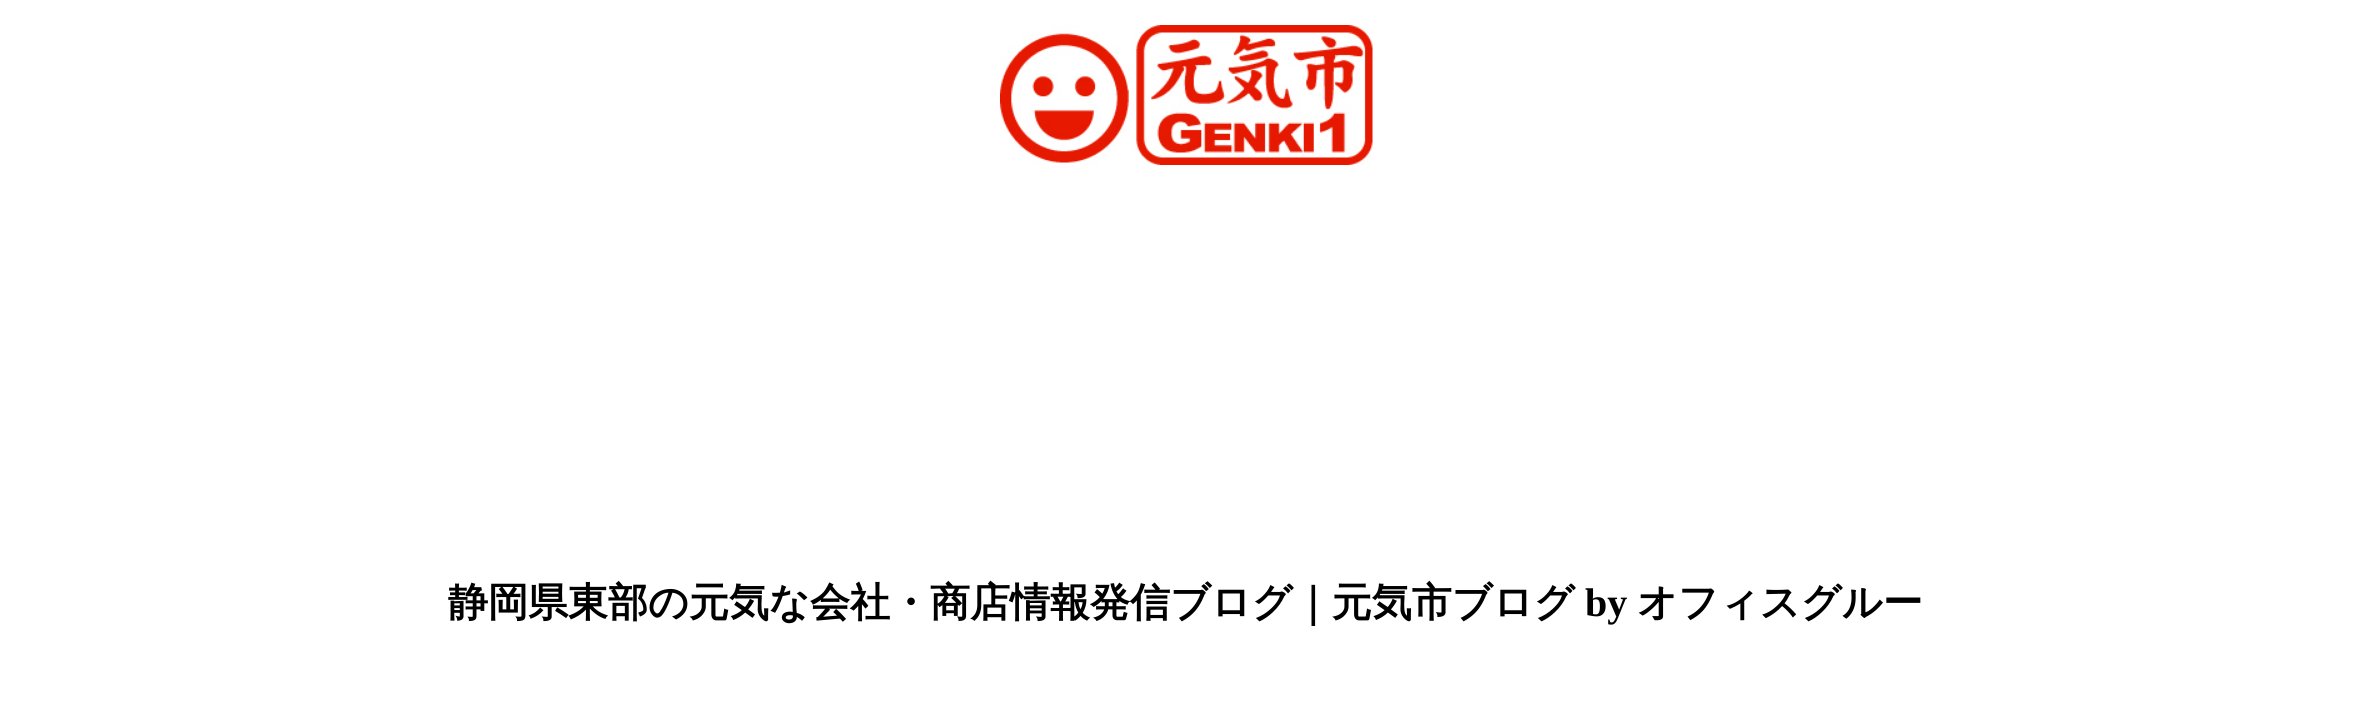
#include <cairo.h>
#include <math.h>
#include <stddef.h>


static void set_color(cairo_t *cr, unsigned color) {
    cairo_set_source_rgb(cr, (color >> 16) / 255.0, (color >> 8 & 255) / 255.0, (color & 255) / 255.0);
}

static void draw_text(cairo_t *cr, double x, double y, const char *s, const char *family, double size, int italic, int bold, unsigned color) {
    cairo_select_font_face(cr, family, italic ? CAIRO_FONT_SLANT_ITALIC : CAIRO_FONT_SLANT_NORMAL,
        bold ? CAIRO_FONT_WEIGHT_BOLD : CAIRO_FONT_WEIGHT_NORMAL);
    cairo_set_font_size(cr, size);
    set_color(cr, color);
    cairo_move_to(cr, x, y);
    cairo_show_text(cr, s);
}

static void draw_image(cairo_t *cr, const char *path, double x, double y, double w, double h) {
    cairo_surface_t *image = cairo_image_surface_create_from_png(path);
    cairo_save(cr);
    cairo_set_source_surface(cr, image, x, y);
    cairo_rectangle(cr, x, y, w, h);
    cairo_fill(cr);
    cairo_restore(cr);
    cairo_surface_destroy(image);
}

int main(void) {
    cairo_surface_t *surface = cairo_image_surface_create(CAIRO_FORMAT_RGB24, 2371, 701);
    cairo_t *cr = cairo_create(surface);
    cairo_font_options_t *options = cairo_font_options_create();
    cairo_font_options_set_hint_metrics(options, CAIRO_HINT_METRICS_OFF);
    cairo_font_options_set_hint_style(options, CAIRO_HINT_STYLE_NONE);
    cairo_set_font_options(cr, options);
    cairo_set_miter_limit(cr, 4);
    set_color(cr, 0xFFFFFF);
    cairo_paint(cr);
    draw_image(cr, "assets/img1.png", 1000, 25, 373, 140);
    draw_text(cr, 448, 616, "静岡県東部の元気な会社・商店情報発信ブログ｜元気市ブログ", "WenQuanYi Zen Hei", 40, 0, 1, 0x000000);
    draw_text(cr, 1585, 616, "by", "Liberation Serif", 40, 0, 1, 0x000000);
    draw_text(cr, 1637, 616, "オフィスグルー", "WenQuanYi Zen Hei", 40, 0, 1, 0x000000);
    cairo_surface_write_to_png(surface, "output.png");
    cairo_font_options_destroy(options);
    cairo_destroy(cr);
    cairo_surface_destroy(surface);
    return 0;
}
